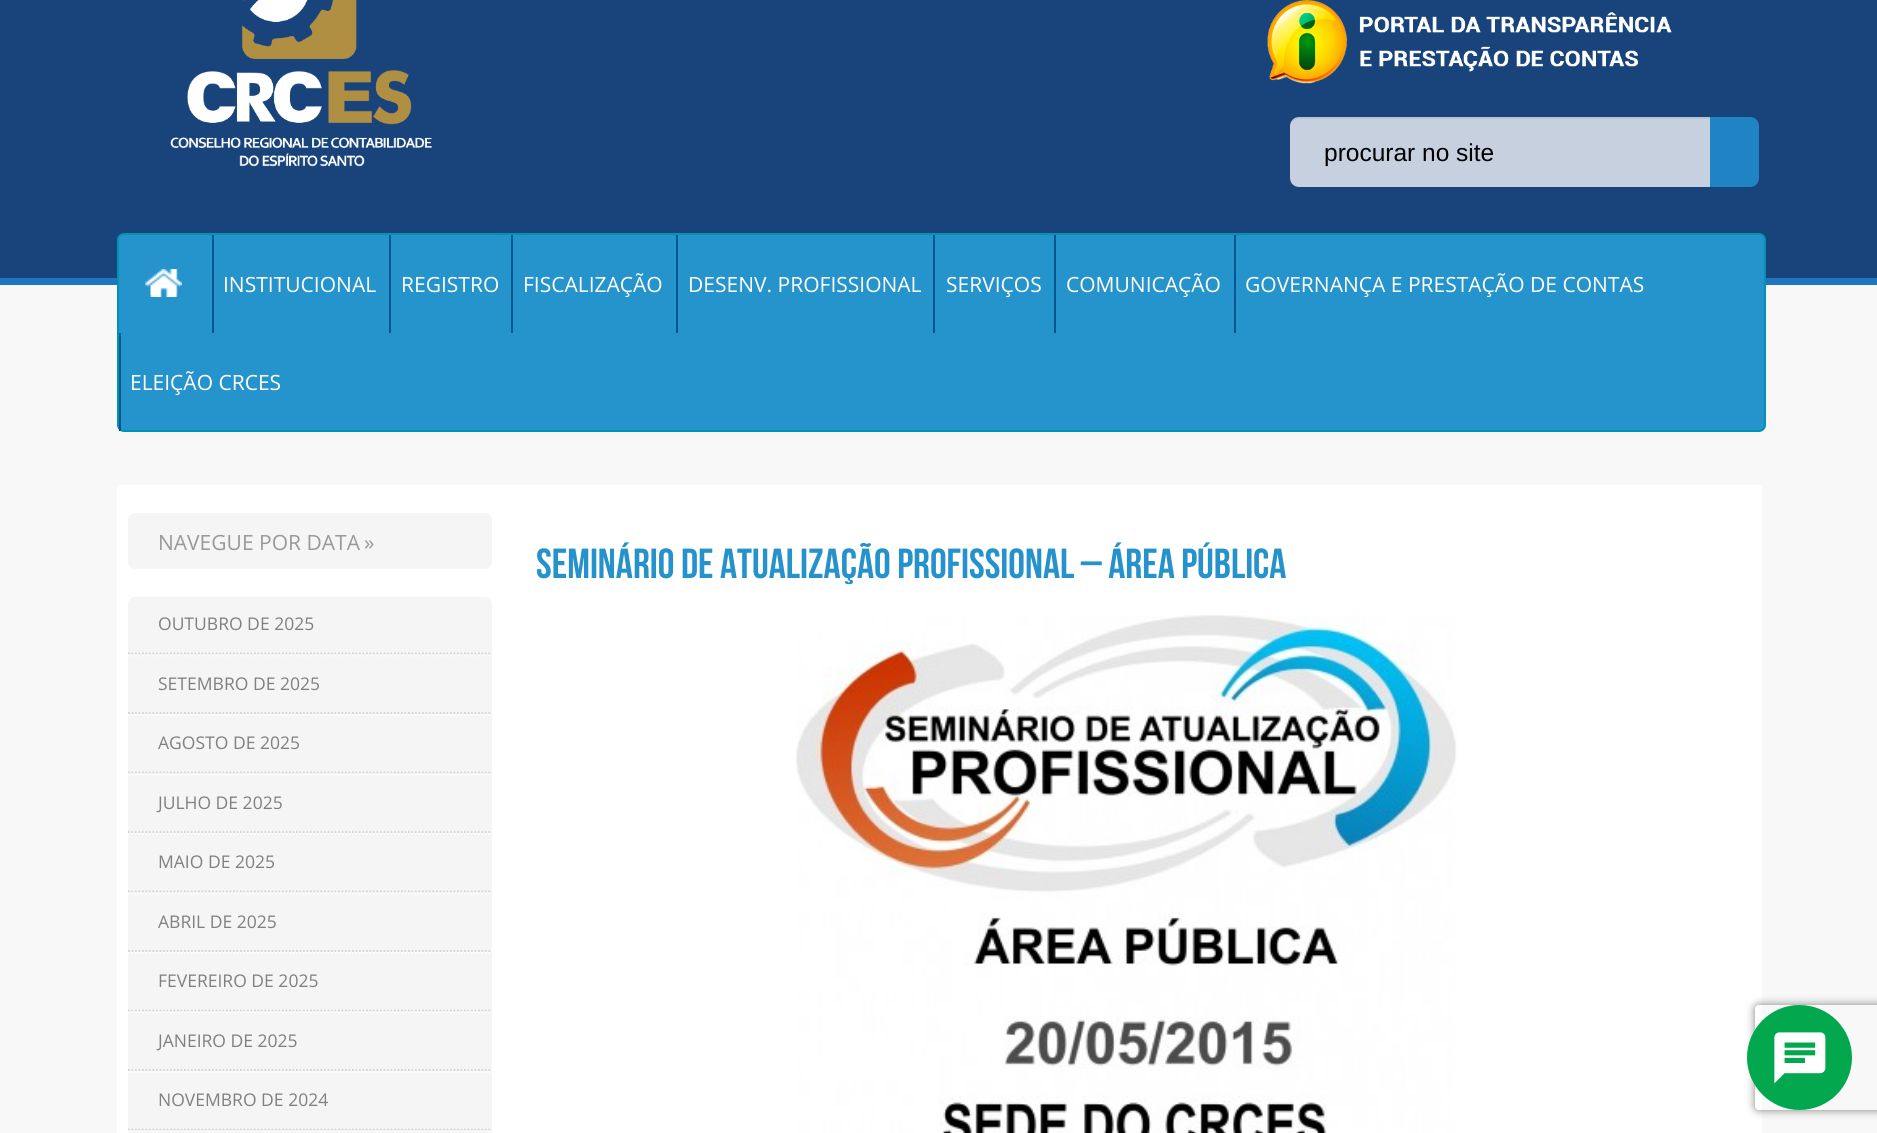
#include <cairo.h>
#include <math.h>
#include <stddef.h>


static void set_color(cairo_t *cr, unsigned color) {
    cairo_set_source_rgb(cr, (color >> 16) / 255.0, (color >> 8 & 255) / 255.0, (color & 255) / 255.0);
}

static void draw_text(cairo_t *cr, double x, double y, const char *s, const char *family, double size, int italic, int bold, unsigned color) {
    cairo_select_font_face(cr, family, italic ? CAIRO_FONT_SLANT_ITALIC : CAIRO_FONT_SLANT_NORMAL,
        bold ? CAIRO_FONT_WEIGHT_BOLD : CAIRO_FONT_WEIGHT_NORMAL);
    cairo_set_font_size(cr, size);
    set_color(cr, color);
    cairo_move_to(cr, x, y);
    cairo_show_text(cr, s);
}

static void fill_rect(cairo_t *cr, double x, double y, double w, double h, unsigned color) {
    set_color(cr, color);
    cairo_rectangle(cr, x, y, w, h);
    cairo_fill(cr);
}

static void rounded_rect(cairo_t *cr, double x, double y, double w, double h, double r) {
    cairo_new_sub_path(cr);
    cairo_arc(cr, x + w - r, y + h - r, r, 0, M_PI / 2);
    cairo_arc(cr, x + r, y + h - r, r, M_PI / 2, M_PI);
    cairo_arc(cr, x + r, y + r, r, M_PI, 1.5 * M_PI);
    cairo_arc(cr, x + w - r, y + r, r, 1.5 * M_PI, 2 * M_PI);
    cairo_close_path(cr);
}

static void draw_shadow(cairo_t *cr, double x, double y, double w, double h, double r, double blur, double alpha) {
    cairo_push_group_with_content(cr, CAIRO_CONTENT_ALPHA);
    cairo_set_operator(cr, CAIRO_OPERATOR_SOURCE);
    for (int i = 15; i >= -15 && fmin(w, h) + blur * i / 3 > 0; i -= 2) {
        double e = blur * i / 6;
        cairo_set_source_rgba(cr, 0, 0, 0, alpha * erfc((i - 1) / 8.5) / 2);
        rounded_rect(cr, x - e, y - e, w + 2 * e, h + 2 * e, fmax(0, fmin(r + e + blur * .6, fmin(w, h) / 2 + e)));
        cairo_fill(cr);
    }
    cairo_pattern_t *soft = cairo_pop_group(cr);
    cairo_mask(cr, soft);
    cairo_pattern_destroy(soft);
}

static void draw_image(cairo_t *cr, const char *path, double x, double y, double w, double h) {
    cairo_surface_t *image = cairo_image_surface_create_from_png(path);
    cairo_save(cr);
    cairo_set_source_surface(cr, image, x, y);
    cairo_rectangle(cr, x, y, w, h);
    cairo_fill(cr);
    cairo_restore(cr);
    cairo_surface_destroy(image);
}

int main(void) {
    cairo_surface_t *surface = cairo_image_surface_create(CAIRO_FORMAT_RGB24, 1877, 1133);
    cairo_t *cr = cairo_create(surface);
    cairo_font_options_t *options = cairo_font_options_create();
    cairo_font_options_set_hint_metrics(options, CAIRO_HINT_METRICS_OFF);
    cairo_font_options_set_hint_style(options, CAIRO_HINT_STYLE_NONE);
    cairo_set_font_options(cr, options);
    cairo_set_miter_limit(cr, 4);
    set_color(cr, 0xF8F8F8);
    cairo_paint(cr);
    fill_rect(cr, 0, 0, 1877, 278, 0x19447B);
    fill_rect(cr, 0, 278, 1877, 7, 0x2076BE);
    draw_image(cr, "assets/img1.png", 170, 0, 263, 167);
    draw_image(cr, "assets/img2.png", 1267, 0, 405, 84);
    set_color(cr, 0xC6D0DE);
    cairo_new_path(cr);
    cairo_move_to(cr, 1299, 117);
    cairo_line_to(cr, 1710, 117);
    cairo_line_to(cr, 1710, 187);
    cairo_line_to(cr, 1299, 187);
    cairo_curve_to(cr, 1294, 187, 1290, 183, 1290, 178);
    cairo_line_to(cr, 1290, 126);
    cairo_curve_to(cr, 1290, 121, 1294, 117, 1299, 117);
    cairo_close_path(cr);
    cairo_fill(cr);
    cairo_set_source_rgba(cr, 0, 0, 0, 0.07);
    cairo_new_path(cr);
    cairo_move_to(cr, 1298, 119);
    cairo_line_to(cr, 1710, 119);
    cairo_line_to(cr, 1710, 117);
    cairo_line_to(cr, 1299, 117);
    cairo_curve_to(cr, 1293, 117, 1290, 122, 1290, 128);
    cairo_curve_to(cr, 1290, 123, 1294, 119, 1298, 119);
    cairo_close_path(cr);
    cairo_fill(cr);
    draw_text(cr, 1324, 161, "procurar no site", "Liberation Sans", 24.5, 0, 0, 0x000000);
    set_color(cr, 0x2084C4);
    cairo_new_path(cr);
    cairo_move_to(cr, 1710, 117);
    cairo_line_to(cr, 1750, 117);
    cairo_curve_to(cr, 1755, 117, 1759, 121, 1759, 126);
    cairo_line_to(cr, 1759, 178);
    cairo_curve_to(cr, 1759, 183, 1755, 187, 1750, 187);
    cairo_line_to(cr, 1710, 187);
    cairo_close_path(cr);
    cairo_fill(cr);
    set_color(cr, 0x2594CC);
    rounded_rect(cr, 118, 234, 1647, 197, 6);
    cairo_fill_preserve(cr);
    set_color(cr, 0x0094B1);
    cairo_stroke(cr);
    draw_image(cr, "assets/img3.png", 145, 269, 37, 28);
    fill_rect(cr, 212, 235, 2, 98, 0x00578F);
    draw_text(cr, 223, 292, "INSTITUCIONAL", "Open Sans", 21, 0, 0, 0xFFFFFF);
    fill_rect(cr, 389, 235, 2, 98, 0x00578F);
    draw_text(cr, 401, 292, "REGISTRO", "Open Sans", 21, 0, 0, 0xFFFFFF);
    fill_rect(cr, 511, 235, 2, 98, 0x00578F);
    draw_text(cr, 523, 292, "FISCALIZAÇÃO", "Open Sans", 21, 0, 0, 0xFFFFFF);
    fill_rect(cr, 676, 235, 2, 98, 0x00578F);
    draw_text(cr, 688, 292, "DESENV. PROFISSIONAL", "Open Sans", 21, 0, 0, 0xFFFFFF);
    fill_rect(cr, 933, 235, 2, 98, 0x00578F);
    draw_text(cr, 946, 292, "SERVIÇOS", "Open Sans", 21, 0, 0, 0xFFFFFF);
    fill_rect(cr, 1054, 235, 2, 98, 0x00578F);
    draw_text(cr, 1066, 292, "COMUNICAÇÃO", "Open Sans", 21, 0, 0, 0xFFFFFF);
    fill_rect(cr, 1234, 235, 2, 98, 0x00578F);
    draw_text(cr, 1245, 292, "GOVERNANÇA E PRESTAÇÃO DE CONTAS", "Open Sans", 21, 0, 0, 0xFFFFFF);
    fill_rect(cr, 119, 333, 2, 98, 0x00578F);
    draw_text(cr, 130, 390, "ELEIÇÃO CRCES", "Open Sans", 21, 0, 0, 0xFFFFFF);
    fill_rect(cr, 117, 485, 1645, 648, 0xFFFFFF);
    set_color(cr, 0xF5F5F5);
    rounded_rect(cr, 128, 513, 364, 56, 7);
    cairo_fill(cr);
    draw_text(cr, 158, 550, "NAVEGUE POR DATA", "Open Sans", 21, 0, 0, 0x999999);
    draw_text(cr, 364, 550, "»", "Open Sans", 21, 0, 0, 0x999999);
    set_color(cr, 0xF5F5F5);
    rounded_rect(cr, 128, 597, 364, 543, 7);
    cairo_fill(cr);
    cairo_new_path(cr);
    cairo_move_to(cr, 128, 653.5);
    cairo_line_to(cr, 492, 653.5);
    set_color(cr, 0xD4D4D4);
    cairo_set_line_width(cr, 1.8);
    cairo_set_dash(cr, (double[]){1.75, 1.75}, 2, 0);
    cairo_stroke(cr);
    draw_text(cr, 158, 630, "OUTUBRO DE 2025", "Open Sans", 17.5, 0, 0, 0x808080);
    cairo_new_path(cr);
    cairo_move_to(cr, 128, 655.5);
    cairo_line_to(cr, 492, 655.5);
    set_color(cr, 0xFFFFFF);
    cairo_stroke(cr);
    cairo_new_path(cr);
    cairo_move_to(cr, 128, 713);
    cairo_line_to(cr, 492, 713);
    set_color(cr, 0xD4D4D4);
    cairo_stroke(cr);
    draw_text(cr, 158, 690, "SETEMBRO DE 2025", "Open Sans", 17.5, 0, 0, 0x808080);
    cairo_new_path(cr);
    cairo_move_to(cr, 128, 715);
    cairo_line_to(cr, 492, 715);
    set_color(cr, 0xFFFFFF);
    cairo_stroke(cr);
    cairo_new_path(cr);
    cairo_move_to(cr, 128, 772.5);
    cairo_line_to(cr, 492, 772.5);
    set_color(cr, 0xD4D4D4);
    cairo_stroke(cr);
    draw_text(cr, 158, 749, "AGOSTO DE 2025", "Open Sans", 17.5, 0, 0, 0x808080);
    cairo_new_path(cr);
    cairo_move_to(cr, 128, 774.5);
    cairo_line_to(cr, 492, 774.5);
    set_color(cr, 0xFFFFFF);
    cairo_stroke(cr);
    cairo_new_path(cr);
    cairo_move_to(cr, 128, 832);
    cairo_line_to(cr, 492, 832);
    set_color(cr, 0xD4D4D4);
    cairo_stroke(cr);
    draw_text(cr, 158, 809, "JULHO DE 2025", "Open Sans", 17.5, 0, 0, 0x808080);
    cairo_new_path(cr);
    cairo_move_to(cr, 128, 834);
    cairo_line_to(cr, 492, 834);
    set_color(cr, 0xFFFFFF);
    cairo_stroke(cr);
    cairo_new_path(cr);
    cairo_move_to(cr, 128, 891.5);
    cairo_line_to(cr, 492, 891.5);
    set_color(cr, 0xD4D4D4);
    cairo_stroke(cr);
    draw_text(cr, 158, 868, "MAIO DE 2025", "Open Sans", 17.5, 0, 0, 0x808080);
    cairo_new_path(cr);
    cairo_move_to(cr, 128, 893.5);
    cairo_line_to(cr, 492, 893.5);
    set_color(cr, 0xFFFFFF);
    cairo_stroke(cr);
    cairo_new_path(cr);
    cairo_move_to(cr, 128, 951);
    cairo_line_to(cr, 492, 951);
    set_color(cr, 0xD4D4D4);
    cairo_stroke(cr);
    draw_text(cr, 158, 928, "ABRIL DE 2025", "Open Sans", 17.5, 0, 0, 0x808080);
    cairo_new_path(cr);
    cairo_move_to(cr, 128, 953);
    cairo_line_to(cr, 492, 953);
    set_color(cr, 0xFFFFFF);
    cairo_stroke(cr);
    cairo_new_path(cr);
    cairo_move_to(cr, 128, 1010.5);
    cairo_line_to(cr, 492, 1010.5);
    set_color(cr, 0xD4D4D4);
    cairo_stroke(cr);
    draw_text(cr, 158, 987, "FEVEREIRO DE 2025", "Open Sans", 17.5, 0, 0, 0x808080);
    cairo_new_path(cr);
    cairo_move_to(cr, 128, 1012.5);
    cairo_line_to(cr, 492, 1012.5);
    set_color(cr, 0xFFFFFF);
    cairo_stroke(cr);
    cairo_new_path(cr);
    cairo_move_to(cr, 128, 1070);
    cairo_line_to(cr, 492, 1070);
    set_color(cr, 0xD4D4D4);
    cairo_stroke(cr);
    draw_text(cr, 158, 1047, "JANEIRO DE 2025", "Open Sans", 17.5, 0, 0, 0x808080);
    cairo_new_path(cr);
    cairo_move_to(cr, 128, 1072);
    cairo_line_to(cr, 492, 1072);
    set_color(cr, 0xFFFFFF);
    cairo_stroke(cr);
    cairo_new_path(cr);
    cairo_move_to(cr, 128, 1129.5);
    cairo_line_to(cr, 492, 1129.5);
    set_color(cr, 0xD4D4D4);
    cairo_stroke(cr);
    draw_text(cr, 158, 1106, "NOVEMBRO DE 2024", "Open Sans", 17.5, 0, 0, 0x808080);
    cairo_new_path(cr);
    cairo_move_to(cr, 128, 1131.5);
    cairo_line_to(cr, 492, 1131.5);
    set_color(cr, 0xFFFFFF);
    cairo_stroke(cr);
    draw_text(cr, 536, 578, "SEMINÁRIO DE ATUALIZAÇÃO PROFISSIONAL – ÁREA PÚBLICA", "Bebas Neue", 42, 0, 0, 0x2592CB);
    draw_image(cr, "assets/img4.png", 796, 615, 661, 518);
    cairo_save(cr);
    cairo_set_fill_rule(cr, CAIRO_FILL_RULE_EVEN_ODD);
    cairo_new_path(cr);
    cairo_move_to(cr, 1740, 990);
    cairo_line_to(cr, 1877, 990);
    cairo_line_to(cr, 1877, 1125);
    cairo_line_to(cr, 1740, 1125);
    cairo_close_path(cr);
    cairo_move_to(cr, 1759, 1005);
    cairo_line_to(cr, 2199, 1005);
    cairo_curve_to(cr, 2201, 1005, 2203, 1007, 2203, 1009);
    cairo_line_to(cr, 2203, 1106);
    cairo_curve_to(cr, 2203, 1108, 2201, 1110, 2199, 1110);
    cairo_line_to(cr, 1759, 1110);
    cairo_curve_to(cr, 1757, 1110, 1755, 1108, 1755, 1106);
    cairo_line_to(cr, 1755, 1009);
    cairo_curve_to(cr, 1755, 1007, 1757, 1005, 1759, 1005);
    cairo_close_path(cr);
    cairo_clip(cr);
    set_color(cr, 0x808080);
    draw_shadow(cr, 1755, 1005, 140, 105, 4, 4.5, 1);
    cairo_restore(cr);
    set_color(cr, 0x03A84E);
    cairo_arc(cr, 1799.5, 1057.5, 52.5, 0, 2 * M_PI);
    cairo_fill(cr);
    draw_image(cr, "assets/img5.png", 1774, 1032, 52, 52);
    cairo_surface_write_to_png(surface, "output.png");
    cairo_font_options_destroy(options);
    cairo_destroy(cr);
    cairo_surface_destroy(surface);
    return 0;
}
